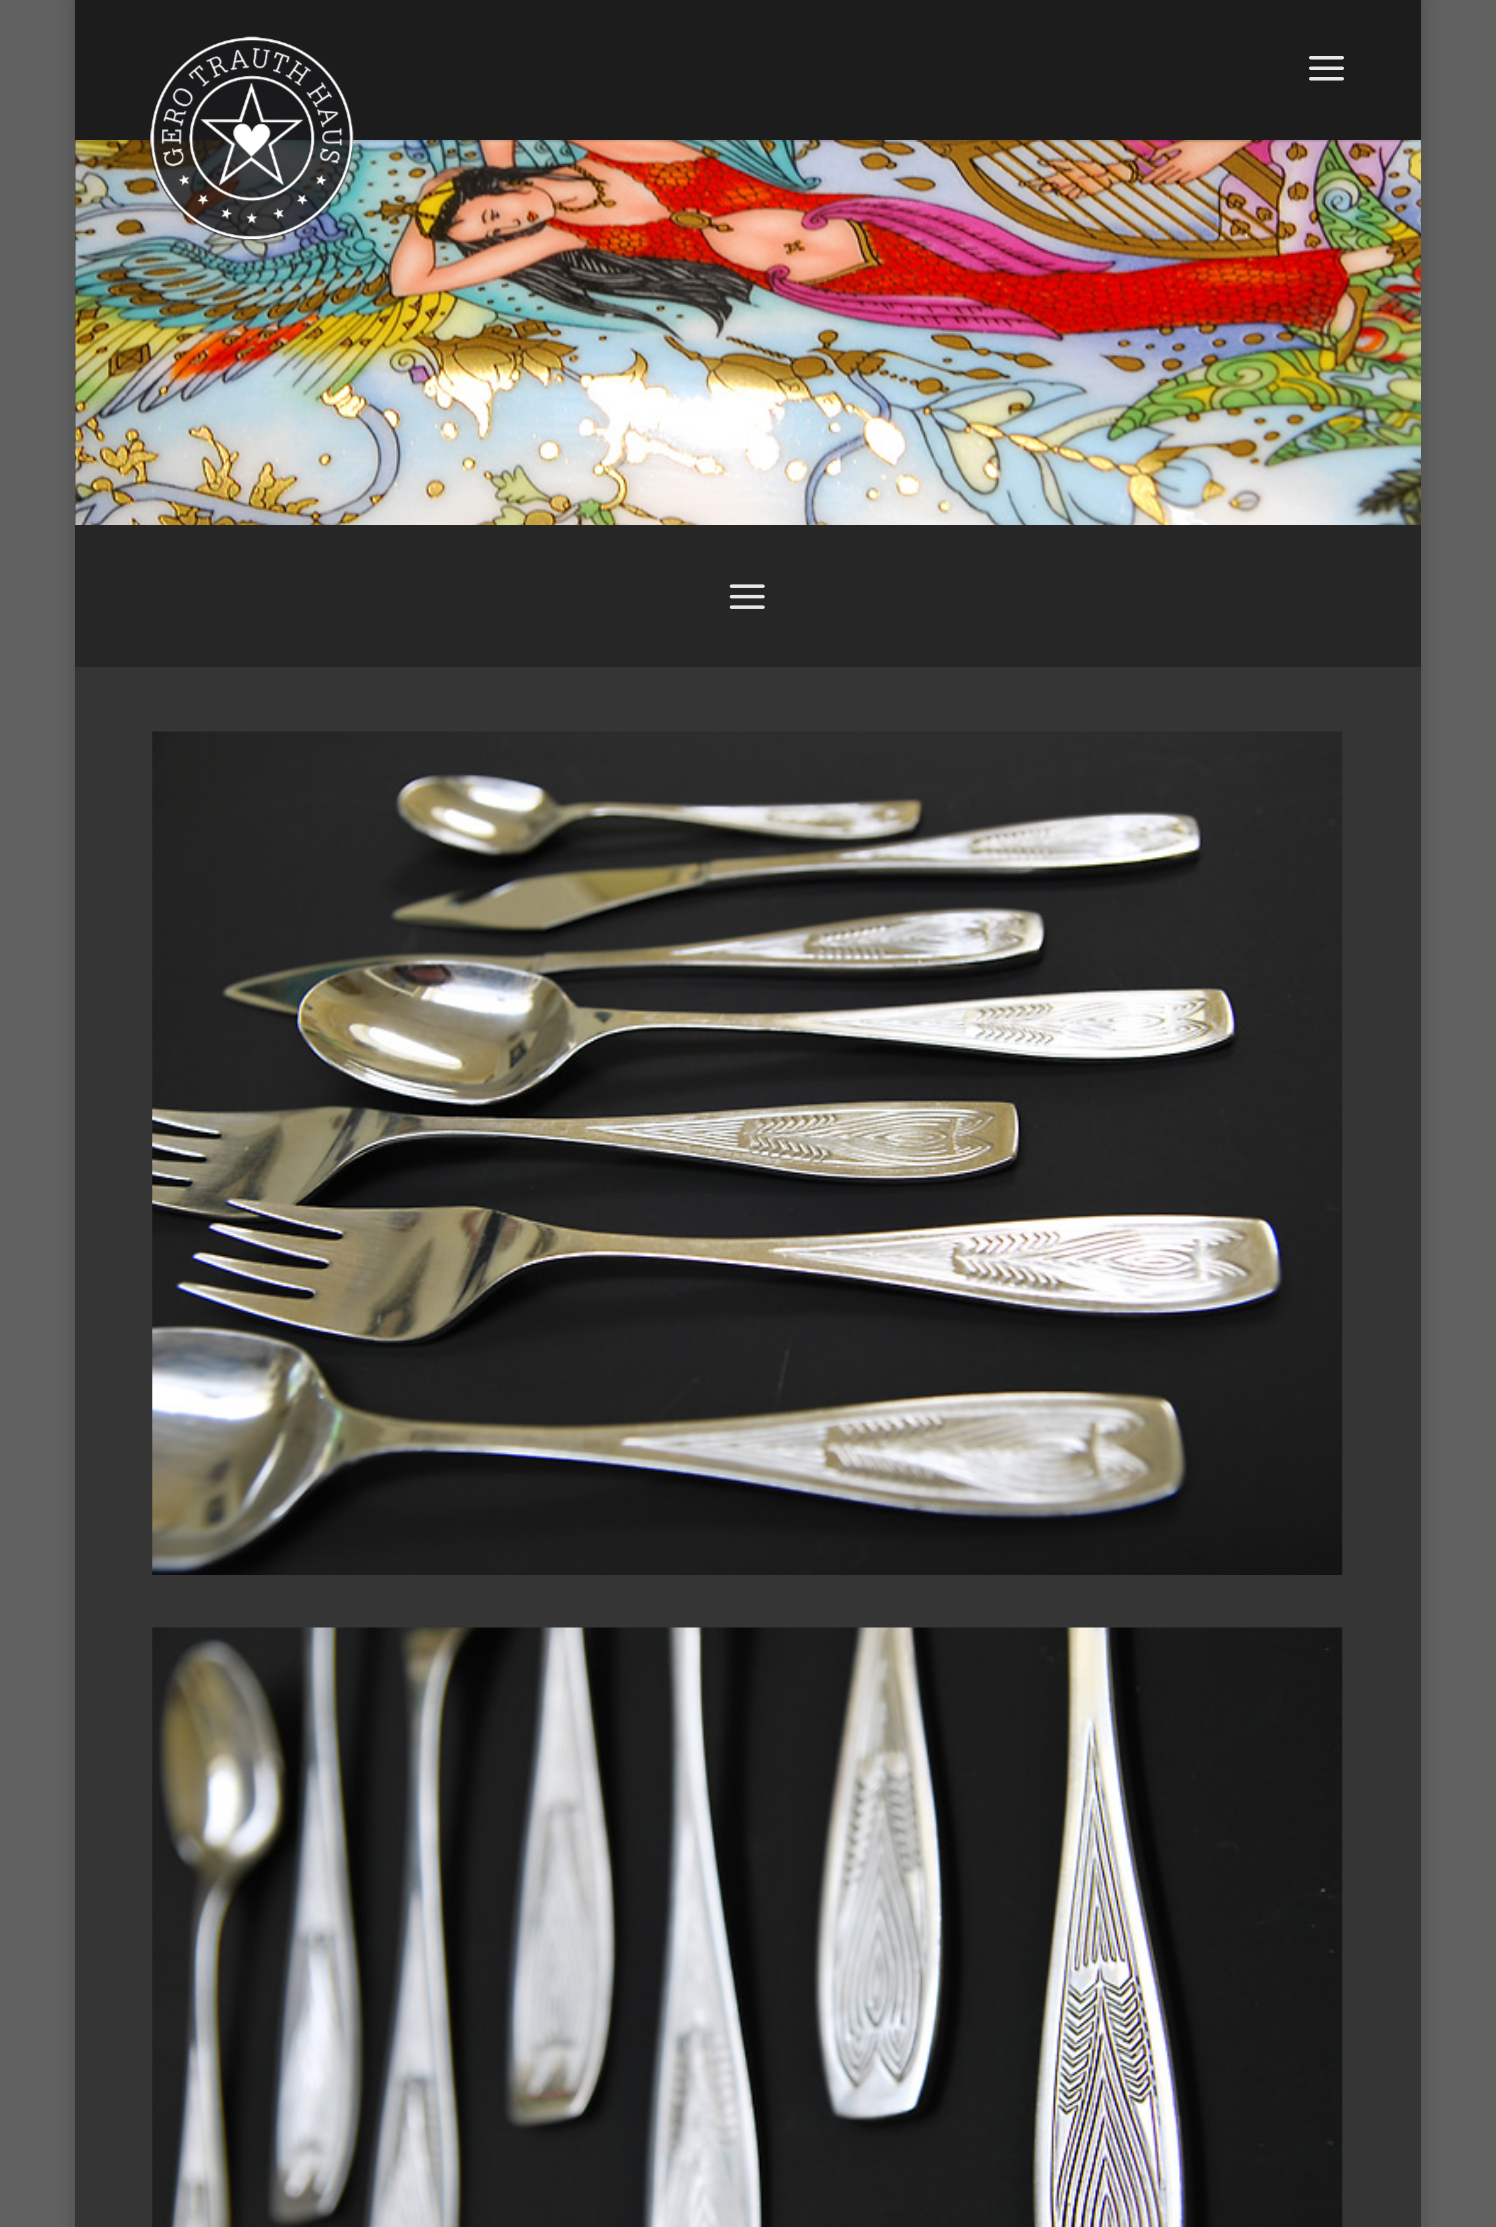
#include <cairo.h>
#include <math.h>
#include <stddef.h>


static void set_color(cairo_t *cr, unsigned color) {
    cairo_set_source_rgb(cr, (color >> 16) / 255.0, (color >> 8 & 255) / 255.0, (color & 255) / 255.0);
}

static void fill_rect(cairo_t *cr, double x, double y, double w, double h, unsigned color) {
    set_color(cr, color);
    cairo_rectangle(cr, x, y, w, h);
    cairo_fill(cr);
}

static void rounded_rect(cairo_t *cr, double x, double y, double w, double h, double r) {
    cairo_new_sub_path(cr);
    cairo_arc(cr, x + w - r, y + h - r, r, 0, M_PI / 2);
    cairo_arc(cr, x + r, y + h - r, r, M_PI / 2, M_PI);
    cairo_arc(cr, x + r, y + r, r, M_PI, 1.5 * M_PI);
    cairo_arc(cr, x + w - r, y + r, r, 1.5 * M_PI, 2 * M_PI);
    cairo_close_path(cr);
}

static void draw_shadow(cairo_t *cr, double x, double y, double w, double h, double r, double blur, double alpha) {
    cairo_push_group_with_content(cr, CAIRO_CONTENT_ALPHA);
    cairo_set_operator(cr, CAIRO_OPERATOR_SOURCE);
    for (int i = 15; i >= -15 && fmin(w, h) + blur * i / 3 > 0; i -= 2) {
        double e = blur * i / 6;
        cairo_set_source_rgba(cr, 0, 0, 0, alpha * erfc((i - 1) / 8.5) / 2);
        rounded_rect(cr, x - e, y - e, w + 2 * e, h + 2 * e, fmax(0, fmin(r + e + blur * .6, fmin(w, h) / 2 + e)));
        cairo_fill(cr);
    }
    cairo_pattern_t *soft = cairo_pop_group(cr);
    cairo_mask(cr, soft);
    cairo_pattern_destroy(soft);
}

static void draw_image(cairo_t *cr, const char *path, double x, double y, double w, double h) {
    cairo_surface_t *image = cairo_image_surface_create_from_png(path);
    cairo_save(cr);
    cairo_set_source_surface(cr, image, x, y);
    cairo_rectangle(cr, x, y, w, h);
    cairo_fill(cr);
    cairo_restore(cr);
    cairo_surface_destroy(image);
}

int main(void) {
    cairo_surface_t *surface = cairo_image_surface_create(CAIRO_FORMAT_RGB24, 1496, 2227);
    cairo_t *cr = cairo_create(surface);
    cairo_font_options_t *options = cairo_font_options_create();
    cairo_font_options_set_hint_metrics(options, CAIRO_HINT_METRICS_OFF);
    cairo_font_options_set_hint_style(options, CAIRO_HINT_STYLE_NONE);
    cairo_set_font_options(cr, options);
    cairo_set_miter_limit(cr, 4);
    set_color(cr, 0x606060);
    cairo_paint(cr);
    set_color(cr, 0x000000);
    draw_shadow(cr, 75, 0, 1346, 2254, 0, 9, 0.2);
    fill_rect(cr, 75, 140, 1, 385, 0x383838);
    draw_image(cr, "assets/img3.png", 75, 140, 1346, 385);
    cairo_set_source_rgba(cr, 0, 0, 0, 0.1);
    cairo_new_path(cr);
    cairo_move_to(cr, 75, 2);
    cairo_line_to(cr, 75, 142);
    cairo_line_to(cr, 1421, 142);
    cairo_line_to(cr, 1421, 140);
    cairo_line_to(cr, 75, 140);
    cairo_close_path(cr);
    cairo_fill(cr);
    fill_rect(cr, 75, 0, 1346, 140, 0x1C1C1C);
    draw_image(cr, "assets/img1.png", 149, 36, 205, 205);
    draw_image(cr, "assets/img2.png", 1309, 56, 35, 25);
    fill_rect(cr, 75, 525, 1346, 142, 0x262626);
    draw_image(cr, "assets/img4.png", 729, 584, 36, 25);
    fill_rect(cr, 75, 667, 1346, 1560, 0x353535);
    draw_image(cr, "assets/img5.png", 152, 731, 1191, 844);
    draw_image(cr, "assets/img6.png", 152, 1627, 1191, 600);
    cairo_surface_write_to_png(surface, "output.png");
    cairo_font_options_destroy(options);
    cairo_destroy(cr);
    cairo_surface_destroy(surface);
    return 0;
}
